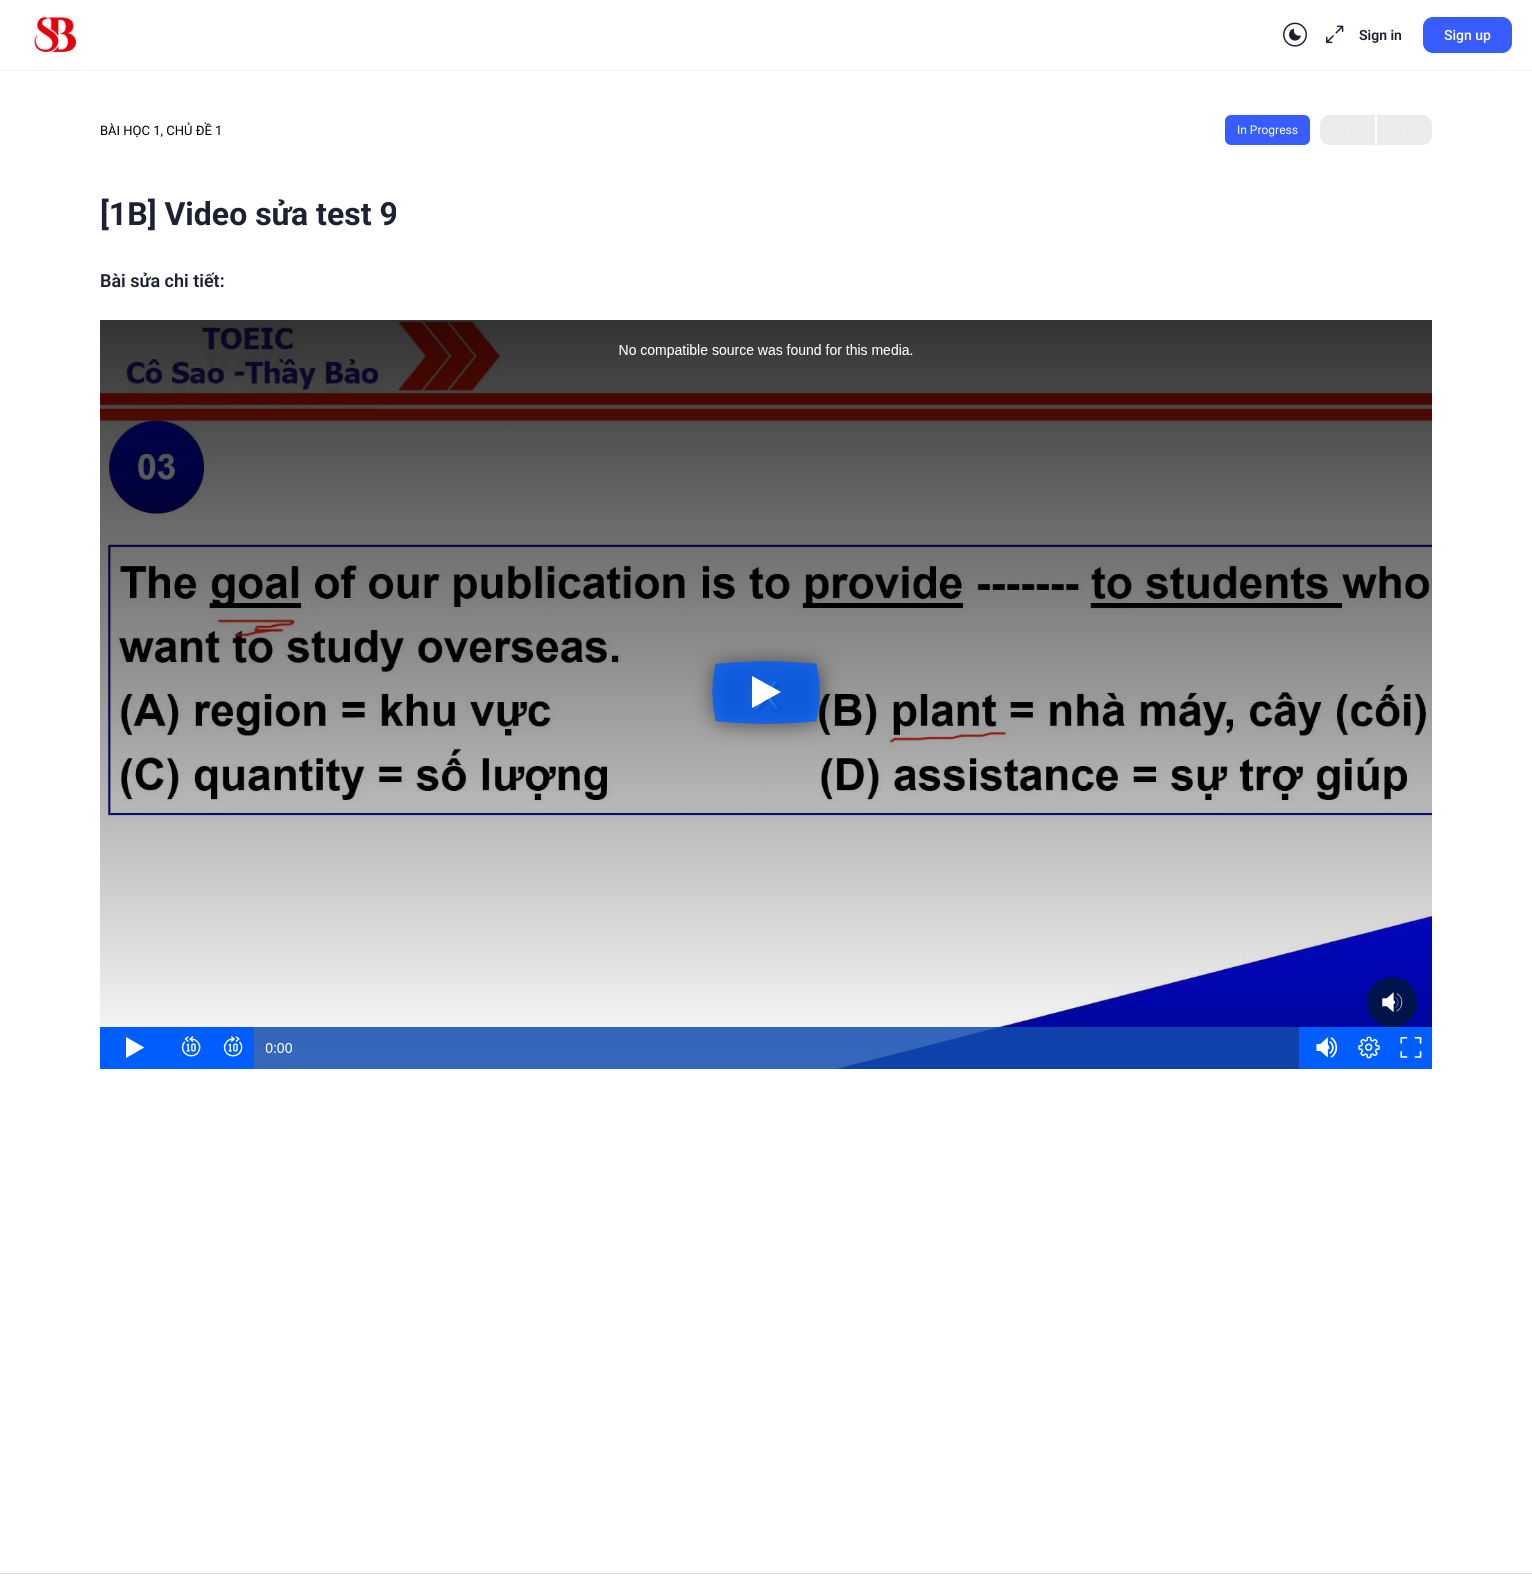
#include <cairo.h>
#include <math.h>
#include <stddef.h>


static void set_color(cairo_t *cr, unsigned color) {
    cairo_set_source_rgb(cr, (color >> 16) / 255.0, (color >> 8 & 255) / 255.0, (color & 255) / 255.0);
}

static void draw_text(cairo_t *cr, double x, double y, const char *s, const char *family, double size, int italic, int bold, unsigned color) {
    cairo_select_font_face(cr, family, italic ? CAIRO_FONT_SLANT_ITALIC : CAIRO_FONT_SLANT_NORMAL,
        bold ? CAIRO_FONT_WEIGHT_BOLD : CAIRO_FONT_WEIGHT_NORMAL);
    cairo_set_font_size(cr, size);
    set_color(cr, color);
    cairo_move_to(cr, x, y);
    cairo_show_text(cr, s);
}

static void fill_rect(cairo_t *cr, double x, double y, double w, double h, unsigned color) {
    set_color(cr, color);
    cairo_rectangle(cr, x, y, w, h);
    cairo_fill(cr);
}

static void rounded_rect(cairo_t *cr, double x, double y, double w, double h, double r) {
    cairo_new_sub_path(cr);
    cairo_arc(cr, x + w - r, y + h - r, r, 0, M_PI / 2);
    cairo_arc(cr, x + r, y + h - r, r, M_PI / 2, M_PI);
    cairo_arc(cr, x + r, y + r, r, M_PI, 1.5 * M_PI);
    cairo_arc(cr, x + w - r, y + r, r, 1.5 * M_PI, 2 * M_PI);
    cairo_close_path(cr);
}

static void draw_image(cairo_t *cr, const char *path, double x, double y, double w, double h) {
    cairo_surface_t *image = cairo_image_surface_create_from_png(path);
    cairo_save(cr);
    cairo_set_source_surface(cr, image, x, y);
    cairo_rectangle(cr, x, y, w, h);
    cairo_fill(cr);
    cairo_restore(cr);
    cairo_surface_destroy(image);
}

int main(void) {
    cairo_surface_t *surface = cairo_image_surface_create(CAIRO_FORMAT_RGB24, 1532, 1580);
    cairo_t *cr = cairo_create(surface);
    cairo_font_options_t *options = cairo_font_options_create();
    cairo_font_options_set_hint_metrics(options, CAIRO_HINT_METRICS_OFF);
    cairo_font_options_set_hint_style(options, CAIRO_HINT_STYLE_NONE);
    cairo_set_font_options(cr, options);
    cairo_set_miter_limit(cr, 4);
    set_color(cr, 0xFFFFFF);
    cairo_paint(cr);
    fill_rect(cr, 0, 70, 1532, 1, 0xF6F7F8);
    draw_image(cr, "assets/img1.png", 34, 16, 43, 37);
    draw_image(cr, "assets/img2.png", 1283, 22, 24, 25);
    draw_image(cr, "assets/img3.png", 1326, 25, 18, 19);
    draw_text(cr, 1359, 40, "Sign in", "Roboto SemiBold", 14, 0, 0, 0x1E2132);
    set_color(cr, 0x385DFF);
    rounded_rect(cr, 1423.5, 17.5, 88, 35, 9.5);
    cairo_fill_preserve(cr);
    cairo_set_line_width(cr, 1);
    cairo_stroke(cr);
    draw_text(cr, 1444, 40, "Sign up", "Roboto Medium", 14, 0, 0, 0xFFFFFF);
    fill_rect(cr, 0, 1573, 1532, 1, 0xD6D9DD);
    draw_text(cr, 100, 135, "BÀI HỌC 1, CHỦ ĐỀ 1", "Roboto", 13, 0, 0, 0x000000);
    set_color(cr, 0x385DFF);
    rounded_rect(cr, 1225, 115, 85, 30, 6);
    cairo_fill(cr);
    draw_text(cr, 1237, 134, "In Progress", "Roboto", 12, 0, 0, 0xFFFFFF);
    set_color(cr, 0xE9EBED);
    cairo_new_path(cr);
    cairo_move_to(cr, 1330, 115);
    cairo_line_to(cr, 1375, 115);
    cairo_line_to(cr, 1375, 145);
    cairo_line_to(cr, 1330, 145);
    cairo_curve_to(cr, 1324.5, 145, 1320, 140.5, 1320, 135);
    cairo_line_to(cr, 1320, 125);
    cairo_curve_to(cr, 1320, 119.5, 1324.5, 115, 1330, 115);
    cairo_close_path(cr);
    cairo_fill(cr);
    draw_image(cr, "assets/img4.png", 1345, 126, 4, 8);
    cairo_new_path(cr);
    cairo_move_to(cr, 1377, 115);
    cairo_line_to(cr, 1422, 115);
    cairo_curve_to(cr, 1427.5, 115, 1432, 119.5, 1432, 125);
    cairo_line_to(cr, 1432, 135);
    cairo_curve_to(cr, 1432, 140.5, 1427.5, 145, 1422, 145);
    cairo_line_to(cr, 1377, 145);
    cairo_close_path(cr);
    cairo_fill(cr);
    draw_image(cr, "assets/img5.png", 1402, 126, 4, 8);
    draw_text(cr, 100, 225, "[1B] Video sửa test 9", "Roboto", 32, 0, 1, 0x1E2132);
    draw_text(cr, 100, 287, "Bài sửa chi tiết:", "Roboto SemiBold", 18, 0, 0, 0x1E2132);
    draw_image(cr, "assets/img6.png", 100, 320, 1332, 749);
    cairo_surface_write_to_png(surface, "output.png");
    cairo_font_options_destroy(options);
    cairo_destroy(cr);
    cairo_surface_destroy(surface);
    return 0;
}
